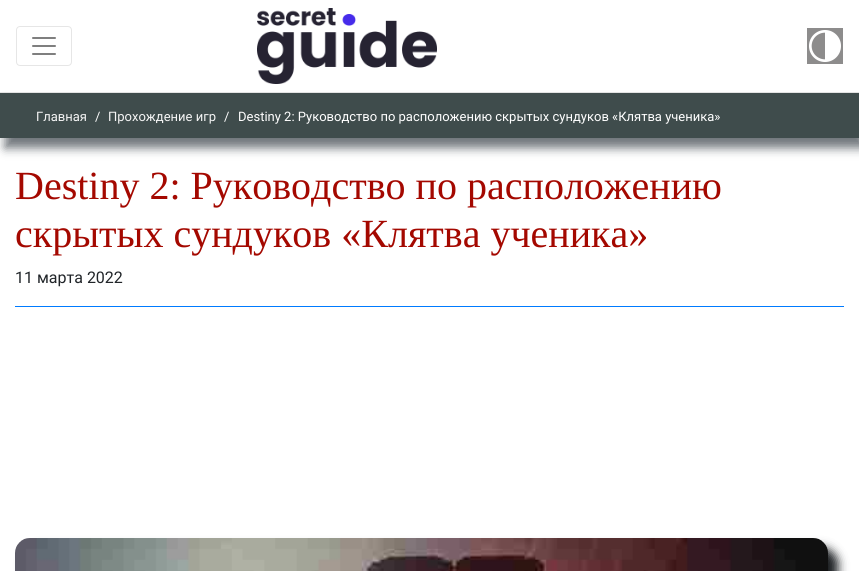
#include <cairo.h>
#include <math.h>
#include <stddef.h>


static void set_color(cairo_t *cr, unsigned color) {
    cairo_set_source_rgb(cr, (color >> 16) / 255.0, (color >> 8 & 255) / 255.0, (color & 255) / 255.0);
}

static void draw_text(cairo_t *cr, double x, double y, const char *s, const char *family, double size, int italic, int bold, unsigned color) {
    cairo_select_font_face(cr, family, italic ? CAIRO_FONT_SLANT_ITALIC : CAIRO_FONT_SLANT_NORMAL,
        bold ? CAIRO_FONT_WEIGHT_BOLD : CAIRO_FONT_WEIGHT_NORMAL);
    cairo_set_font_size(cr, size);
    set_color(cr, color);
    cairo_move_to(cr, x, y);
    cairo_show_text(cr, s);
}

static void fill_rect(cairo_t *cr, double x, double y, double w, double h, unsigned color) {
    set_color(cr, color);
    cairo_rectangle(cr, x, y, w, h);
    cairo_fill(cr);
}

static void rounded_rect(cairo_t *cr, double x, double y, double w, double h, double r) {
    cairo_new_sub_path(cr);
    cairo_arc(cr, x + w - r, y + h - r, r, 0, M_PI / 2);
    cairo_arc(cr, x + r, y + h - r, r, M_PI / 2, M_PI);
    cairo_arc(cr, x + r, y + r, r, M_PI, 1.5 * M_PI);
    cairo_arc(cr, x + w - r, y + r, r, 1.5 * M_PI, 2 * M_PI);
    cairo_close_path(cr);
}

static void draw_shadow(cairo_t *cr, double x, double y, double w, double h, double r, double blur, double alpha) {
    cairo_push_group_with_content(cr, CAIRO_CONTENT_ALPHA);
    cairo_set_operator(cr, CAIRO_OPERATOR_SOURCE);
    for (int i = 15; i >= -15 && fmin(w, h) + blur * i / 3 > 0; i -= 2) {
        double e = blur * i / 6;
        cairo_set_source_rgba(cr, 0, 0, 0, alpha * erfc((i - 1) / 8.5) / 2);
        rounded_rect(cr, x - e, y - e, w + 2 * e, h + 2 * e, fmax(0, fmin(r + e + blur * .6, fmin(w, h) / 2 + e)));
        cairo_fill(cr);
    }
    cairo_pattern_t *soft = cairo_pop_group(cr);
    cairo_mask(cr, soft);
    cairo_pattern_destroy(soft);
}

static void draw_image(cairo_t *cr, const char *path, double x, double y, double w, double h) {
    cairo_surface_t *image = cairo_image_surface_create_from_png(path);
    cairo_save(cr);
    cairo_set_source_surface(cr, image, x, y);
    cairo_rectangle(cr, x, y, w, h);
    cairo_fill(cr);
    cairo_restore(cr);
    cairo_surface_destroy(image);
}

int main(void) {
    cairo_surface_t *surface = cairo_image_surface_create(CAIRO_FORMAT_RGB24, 859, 571);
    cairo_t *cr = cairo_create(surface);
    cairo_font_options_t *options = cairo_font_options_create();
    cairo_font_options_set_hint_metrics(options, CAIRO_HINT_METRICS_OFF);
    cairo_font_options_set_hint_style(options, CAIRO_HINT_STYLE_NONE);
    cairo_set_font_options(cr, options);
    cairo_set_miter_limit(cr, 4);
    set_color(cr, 0xFFFFFF);
    cairo_paint(cr);
    fill_rect(cr, 0, 92, 859, 1, 0xE5E5E5);
    rounded_rect(cr, 16.5, 26.5, 55, 39, 3.5);
    set_color(cr, 0xE6E6E6);
    cairo_set_line_width(cr, 1);
    cairo_stroke(cr);
    draw_image(cr, "assets/img1.png", 32, 37, 24, 18);
    draw_image(cr, "assets/img2.png", 257, 8, 180, 76);
    fill_rect(cr, 807, 28, 36, 36, 0x8D8C8C);
    draw_image(cr, "assets/img3.png", 809, 30, 32, 32);
    set_color(cr, 0x71777C);
    draw_shadow(cr, 5, 103, 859, 45, 0, 5, 1);
    fill_rect(cr, 0, 93, 859, 45, 0x3F4C4C);
    draw_text(cr, 36, 121, "Главная", "Roboto", 13, 0, 0, 0xF5F5F5);
    draw_text(cr, 95, 121, "/", "Roboto", 13, 0, 0, 0xFFFFFF);
    draw_text(cr, 108, 121, "Прохождение игр", "Roboto", 13, 0, 0, 0xF5F5F5);
    draw_text(cr, 224, 121, "/", "Roboto", 13, 0, 0, 0xFFFFFF);
    draw_text(cr, 238, 121, "Destiny 2: Руководство по расположению скрытых сундуков «Клятва ученика»", "Roboto", 13, 0, 0, 0xFFFFFF);
    draw_text(cr, 15, 199, "Destiny 2: Руководство по расположению", "Liberation Serif", 40, 0, 0, 0xA40800);
    draw_text(cr, 15, 247, "скрытых сундуков «Клятва ученика»", "Liberation Serif", 40, 0, 0, 0xA40800);
    draw_text(cr, 15, 283, "11 марта 2022", "Roboto", 16, 0, 0, 0x212529);
    fill_rect(cr, 15, 306, 829, 1, 0x007BFF);
    set_color(cr, 0x1B1E21);
    draw_shadow(cr, 25, 548, 813, 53, 15, 5, 1);
    draw_image(cr, "assets/img4.png", 15, 538, 813, 33);
    cairo_surface_write_to_png(surface, "output.png");
    cairo_font_options_destroy(options);
    cairo_destroy(cr);
    cairo_surface_destroy(surface);
    return 0;
}
